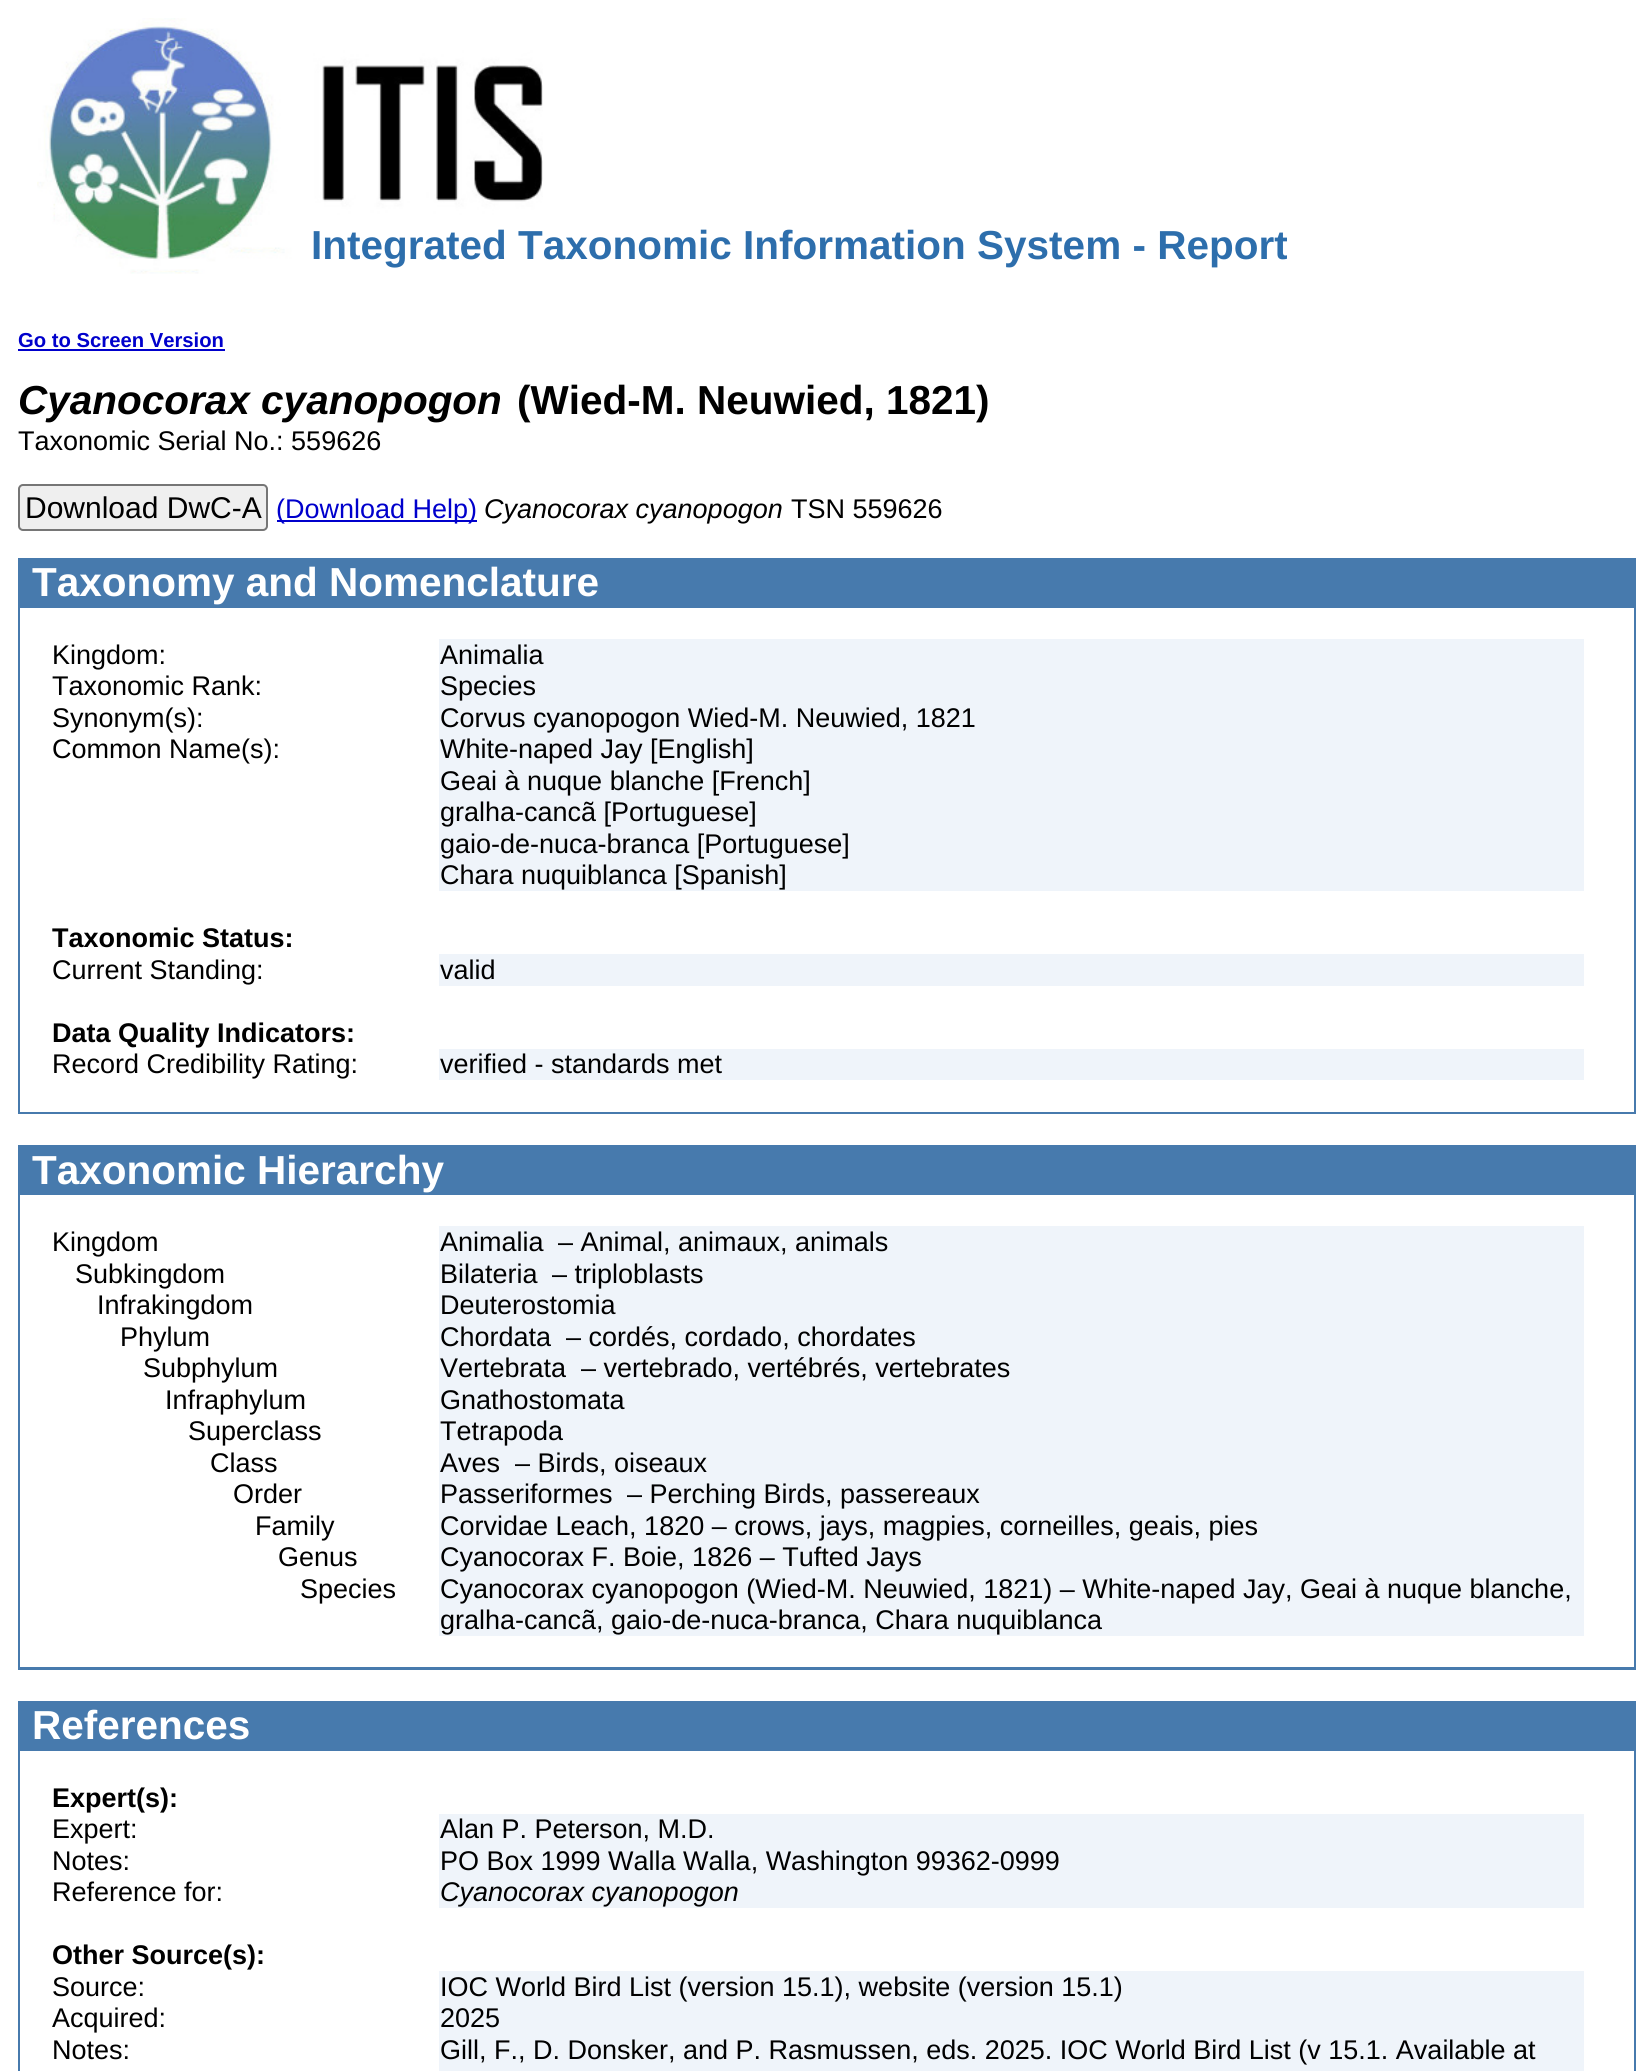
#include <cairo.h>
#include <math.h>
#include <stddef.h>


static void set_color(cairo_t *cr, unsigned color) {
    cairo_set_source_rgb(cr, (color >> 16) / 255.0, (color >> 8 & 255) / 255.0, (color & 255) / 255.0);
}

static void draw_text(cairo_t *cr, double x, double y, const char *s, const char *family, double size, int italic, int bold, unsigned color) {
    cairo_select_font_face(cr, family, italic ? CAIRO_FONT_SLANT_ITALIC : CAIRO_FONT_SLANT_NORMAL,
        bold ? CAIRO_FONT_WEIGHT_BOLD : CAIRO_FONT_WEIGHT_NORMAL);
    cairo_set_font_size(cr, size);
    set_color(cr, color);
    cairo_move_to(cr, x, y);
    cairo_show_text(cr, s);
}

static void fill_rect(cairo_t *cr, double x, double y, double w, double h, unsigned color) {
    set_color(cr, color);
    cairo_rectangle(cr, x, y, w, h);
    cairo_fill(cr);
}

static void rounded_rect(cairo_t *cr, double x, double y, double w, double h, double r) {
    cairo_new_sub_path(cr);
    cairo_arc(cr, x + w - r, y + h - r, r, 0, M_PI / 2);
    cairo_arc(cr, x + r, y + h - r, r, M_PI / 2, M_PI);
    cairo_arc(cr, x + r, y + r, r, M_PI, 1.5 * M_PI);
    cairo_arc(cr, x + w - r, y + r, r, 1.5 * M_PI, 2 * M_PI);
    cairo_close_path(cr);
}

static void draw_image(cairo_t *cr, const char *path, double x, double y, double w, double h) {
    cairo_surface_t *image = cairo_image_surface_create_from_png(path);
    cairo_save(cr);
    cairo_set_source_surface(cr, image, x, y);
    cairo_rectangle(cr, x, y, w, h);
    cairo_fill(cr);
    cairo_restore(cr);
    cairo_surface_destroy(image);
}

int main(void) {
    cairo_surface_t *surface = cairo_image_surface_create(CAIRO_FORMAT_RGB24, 1652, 2071);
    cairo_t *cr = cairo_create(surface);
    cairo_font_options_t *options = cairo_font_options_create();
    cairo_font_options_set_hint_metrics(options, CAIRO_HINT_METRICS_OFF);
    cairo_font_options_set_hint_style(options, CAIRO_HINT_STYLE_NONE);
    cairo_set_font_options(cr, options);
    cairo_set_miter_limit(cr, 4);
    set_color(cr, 0xFFFFFF);
    cairo_paint(cr);
    draw_image(cr, "assets/img1.png", 37, 18, 506, 256);
    draw_text(cr, 311, 259, "Integrated Taxonomic Information System - Report", "Liberation Sans", 40.5, 0, 1, 0x2D6EAC);
    draw_text(cr, 18, 347, "Go to Screen Version", "Liberation Sans", 20.25, 0, 1, 0x0000CC);
    fill_rect(cr, 18, 349, 207, 2, 0x0000CC);
    draw_text(cr, 18, 414, "Cyanocorax cyanopogon", "Liberation Sans", 40.5, 1, 1, 0x000000);
    draw_text(cr, 517, 414, "(Wied-M. Neuwied, 1821)", "Liberation Sans", 40.5, 0, 1, 0x000000);
    draw_text(cr, 18, 450, "Taxonomic Serial No.: 559626", "Liberation Sans", 27, 0, 0, 0x000000);
    set_color(cr, 0xEFEFEF);
    rounded_rect(cr, 19, 485, 248, 45, 4);
    cairo_fill_preserve(cr);
    set_color(cr, 0x767676);
    cairo_stroke(cr);
    draw_text(cr, 25, 518, "Download DwC-A", "Liberation Sans", 30, 0, 0, 0x000000);
    fill_rect(cr, 277, 520, 200, 2, 0x0000CC);
    draw_text(cr, 276, 518, "(Download Help)", "Liberation Sans", 27, 0, 0, 0x0000CC);
    draw_text(cr, 484, 518, "Cyanocorax cyanopogon", "Liberation Sans", 27, 1, 0, 0x000000);
    draw_text(cr, 791, 518, "TSN 559626", "Liberation Sans", 27, 0, 0, 0x000000);
    fill_rect(cr, 18, 558, 1618, 556, 0x477AAD);
    draw_text(cr, 32, 596, "Taxonomy and Nomenclature", "Liberation Sans", 40.5, 0, 1, 0xFFFFFF);
    fill_rect(cr, 20, 608, 1614, 504, 0xFFFFFF);
    draw_text(cr, 52, 664, "Kingdom:", "Liberation Sans", 27, 0, 0, 0x000000);
    fill_rect(cr, 439, 639, 1145, 252, 0xEFF4FA);
    draw_text(cr, 440, 664, "Animalia", "Liberation Sans", 27, 0, 0, 0x000000);
    draw_text(cr, 52, 695, "Taxonomic Rank:", "Liberation Sans", 27, 0, 0, 0x000000);
    draw_text(cr, 440, 695, "Species", "Liberation Sans", 27, 0, 0, 0x000000);
    draw_text(cr, 52, 727, "Synonym(s):", "Liberation Sans", 27, 0, 0, 0x000000);
    draw_text(cr, 440, 727, "Corvus cyanopogon Wied-M. Neuwied, 1821", "Liberation Sans", 27, 0, 0, 0x000000);
    draw_text(cr, 52, 758, "Common Name(s):", "Liberation Sans", 27, 0, 0, 0x000000);
    draw_text(cr, 440, 758, "White-naped Jay [English]", "Liberation Sans", 27, 0, 0, 0x000000);
    draw_text(cr, 440, 790, "Geai à nuque blanche [French]", "Liberation Sans", 27, 0, 0, 0x000000);
    draw_text(cr, 440, 821, "gralha-cancã [Portuguese]", "Liberation Sans", 27, 0, 0, 0x000000);
    draw_text(cr, 440, 853, "gaio-de-nuca-branca [Portuguese]", "Liberation Sans", 27, 0, 0, 0x000000);
    draw_text(cr, 440, 884, "Chara nuquiblanca [Spanish]", "Liberation Sans", 27, 0, 0, 0x000000);
    draw_text(cr, 52, 947, "Taxonomic Status:", "Liberation Sans", 27, 0, 1, 0x000000);
    draw_text(cr, 52, 979, "Current Standing:", "Liberation Sans", 27, 0, 0, 0x000000);
    fill_rect(cr, 439, 954, 1145, 32, 0xEFF4FA);
    draw_text(cr, 440, 979, "valid", "Liberation Sans", 27, 0, 0, 0x000000);
    draw_text(cr, 52, 1042, "Data Quality Indicators:", "Liberation Sans", 27, 0, 1, 0x000000);
    draw_text(cr, 52, 1073, "Record Credibility Rating:", "Liberation Sans", 27, 0, 0, 0x000000);
    fill_rect(cr, 439, 1049, 1145, 31, 0xEFF4FA);
    draw_text(cr, 440, 1073, "verified - standards met", "Liberation Sans", 27, 0, 0, 0x000000);
    fill_rect(cr, 18, 1145, 1618, 525, 0x477AAD);
    draw_text(cr, 32, 1184, "Taxonomic Hierarchy", "Liberation Sans", 40.5, 0, 1, 0xFFFFFF);
    fill_rect(cr, 20, 1195, 1614, 472, 0xFFFFFF);
    draw_text(cr, 52, 1251, "Kingdom", "Liberation Sans", 27, 0, 0, 0x000000);
    fill_rect(cr, 439, 1226, 1145, 410, 0xEFF4FA);
    draw_text(cr, 440, 1251, "Animalia", "Liberation Sans", 27, 0, 0, 0x000000);
    draw_text(cr, 558, 1251, "– Animal, animaux, animals", "Liberation Sans", 27, 0, 0, 0x000000);
    draw_text(cr, 75, 1283, "Subkingdom", "Liberation Sans", 27, 0, 0, 0x000000);
    draw_text(cr, 440, 1283, "Bilateria", "Liberation Sans", 27, 0, 0, 0x000000);
    draw_text(cr, 552, 1283, "– triploblasts", "Liberation Sans", 27, 0, 0, 0x000000);
    draw_text(cr, 97, 1314, "Infrakingdom", "Liberation Sans", 27, 0, 0, 0x000000);
    draw_text(cr, 440, 1314, "Deuterostomia", "Liberation Sans", 27, 0, 0, 0x000000);
    draw_text(cr, 120, 1346, "Phylum", "Liberation Sans", 27, 0, 0, 0x000000);
    draw_text(cr, 440, 1346, "Chordata", "Liberation Sans", 27, 0, 0, 0x000000);
    draw_text(cr, 566, 1346, "– cordés, cordado, chordates", "Liberation Sans", 27, 0, 0, 0x000000);
    draw_text(cr, 143, 1377, "Subphylum", "Liberation Sans", 27, 0, 0, 0x000000);
    draw_text(cr, 440, 1377, "Vertebrata", "Liberation Sans", 27, 0, 0, 0x000000);
    draw_text(cr, 581, 1377, "– vertebrado, vertébrés, vertebrates", "Liberation Sans", 27, 0, 0, 0x000000);
    draw_text(cr, 165, 1409, "Infraphylum", "Liberation Sans", 27, 0, 0, 0x000000);
    draw_text(cr, 440, 1409, "Gnathostomata", "Liberation Sans", 27, 0, 0, 0x000000);
    draw_text(cr, 188, 1440, "Superclass", "Liberation Sans", 27, 0, 0, 0x000000);
    draw_text(cr, 440, 1440, "Tetrapoda", "Liberation Sans", 27, 0, 0, 0x000000);
    draw_text(cr, 210, 1472, "Class", "Liberation Sans", 27, 0, 0, 0x000000);
    draw_text(cr, 440, 1472, "Aves", "Liberation Sans", 27, 0, 0, 0x000000);
    draw_text(cr, 515, 1472, "– Birds, oiseaux", "Liberation Sans", 27, 0, 0, 0x000000);
    draw_text(cr, 233, 1503, "Order", "Liberation Sans", 27, 0, 0, 0x000000);
    draw_text(cr, 440, 1503, "Passeriformes", "Liberation Sans", 27, 0, 0, 0x000000);
    draw_text(cr, 627, 1503, "– Perching Birds, passereaux", "Liberation Sans", 27, 0, 0, 0x000000);
    draw_text(cr, 255, 1535, "Family", "Liberation Sans", 27, 0, 0, 0x000000);
    draw_text(cr, 440, 1535, "Corvidae Leach, 1820 – crows, jays, magpies, corneilles, geais, pies", "Liberation Sans", 27, 0, 0, 0x000000);
    draw_text(cr, 278, 1566, "Genus", "Liberation Sans", 27, 0, 0, 0x000000);
    draw_text(cr, 440, 1566, "Cyanocorax F. Boie, 1826 – Tufted Jays", "Liberation Sans", 27, 0, 0, 0x000000);
    draw_text(cr, 300, 1598, "Species", "Liberation Sans", 27, 0, 0, 0x000000);
    draw_text(cr, 440, 1598, "Cyanocorax cyanopogon (Wied-M. Neuwied, 1821) – White-naped Jay, Geai à nuque blanche,", "Liberation Sans", 27, 0, 0, 0x000000);
    draw_text(cr, 440, 1629, "gralha-cancã, gaio-de-nuca-branca, Chara nuquiblanca", "Liberation Sans", 27, 0, 0, 0x000000);
    fill_rect(cr, 18, 1701, 1618, 370, 0x477AAD);
    draw_text(cr, 32, 1739, "References", "Liberation Sans", 40.5, 0, 1, 0xFFFFFF);
    fill_rect(cr, 20, 1751, 1614, 320, 0xFFFFFF);
    draw_text(cr, 52, 1807, "Expert(s):", "Liberation Sans", 27, 0, 1, 0x000000);
    draw_text(cr, 52, 1838, "Expert:", "Liberation Sans", 27, 0, 0, 0x000000);
    fill_rect(cr, 439, 1814, 1145, 94, 0xEFF4FA);
    draw_text(cr, 440, 1838, "Alan P. Peterson, M.D.", "Liberation Sans", 27, 0, 0, 0x000000);
    draw_text(cr, 52, 1870, "Notes:", "Liberation Sans", 27, 0, 0, 0x000000);
    draw_text(cr, 440, 1870, "PO Box 1999 Walla Walla, Washington 99362-0999", "Liberation Sans", 27, 0, 0, 0x000000);
    draw_text(cr, 52, 1901, "Reference for:", "Liberation Sans", 27, 0, 0, 0x000000);
    draw_text(cr, 440, 1901, "Cyanocorax cyanopogon", "Liberation Sans", 27, 1, 0, 0x000000);
    draw_text(cr, 52, 1964, "Other Source(s):", "Liberation Sans", 27, 0, 1, 0x000000);
    draw_text(cr, 52, 1996, "Source:", "Liberation Sans", 27, 0, 0, 0x000000);
    fill_rect(cr, 439, 1971, 1145, 100, 0xEFF4FA);
    draw_text(cr, 440, 1996, "IOC World Bird List (version 15.1), website (version 15.1)", "Liberation Sans", 27, 0, 0, 0x000000);
    draw_text(cr, 52, 2027, "Acquired:", "Liberation Sans", 27, 0, 0, 0x000000);
    draw_text(cr, 440, 2027, "2025", "Liberation Sans", 27, 0, 0, 0x000000);
    draw_text(cr, 52, 2059, "Notes:", "Liberation Sans", 27, 0, 0, 0x000000);
    draw_text(cr, 440, 2059, "Gill, F., D. Donsker, and P. Rasmussen, eds. 2025. IOC World Bird List (v 15.1. Available at", "Liberation Sans", 27, 0, 0, 0x000000);
    cairo_surface_write_to_png(surface, "output.png");
    cairo_font_options_destroy(options);
    cairo_destroy(cr);
    cairo_surface_destroy(surface);
    return 0;
}
